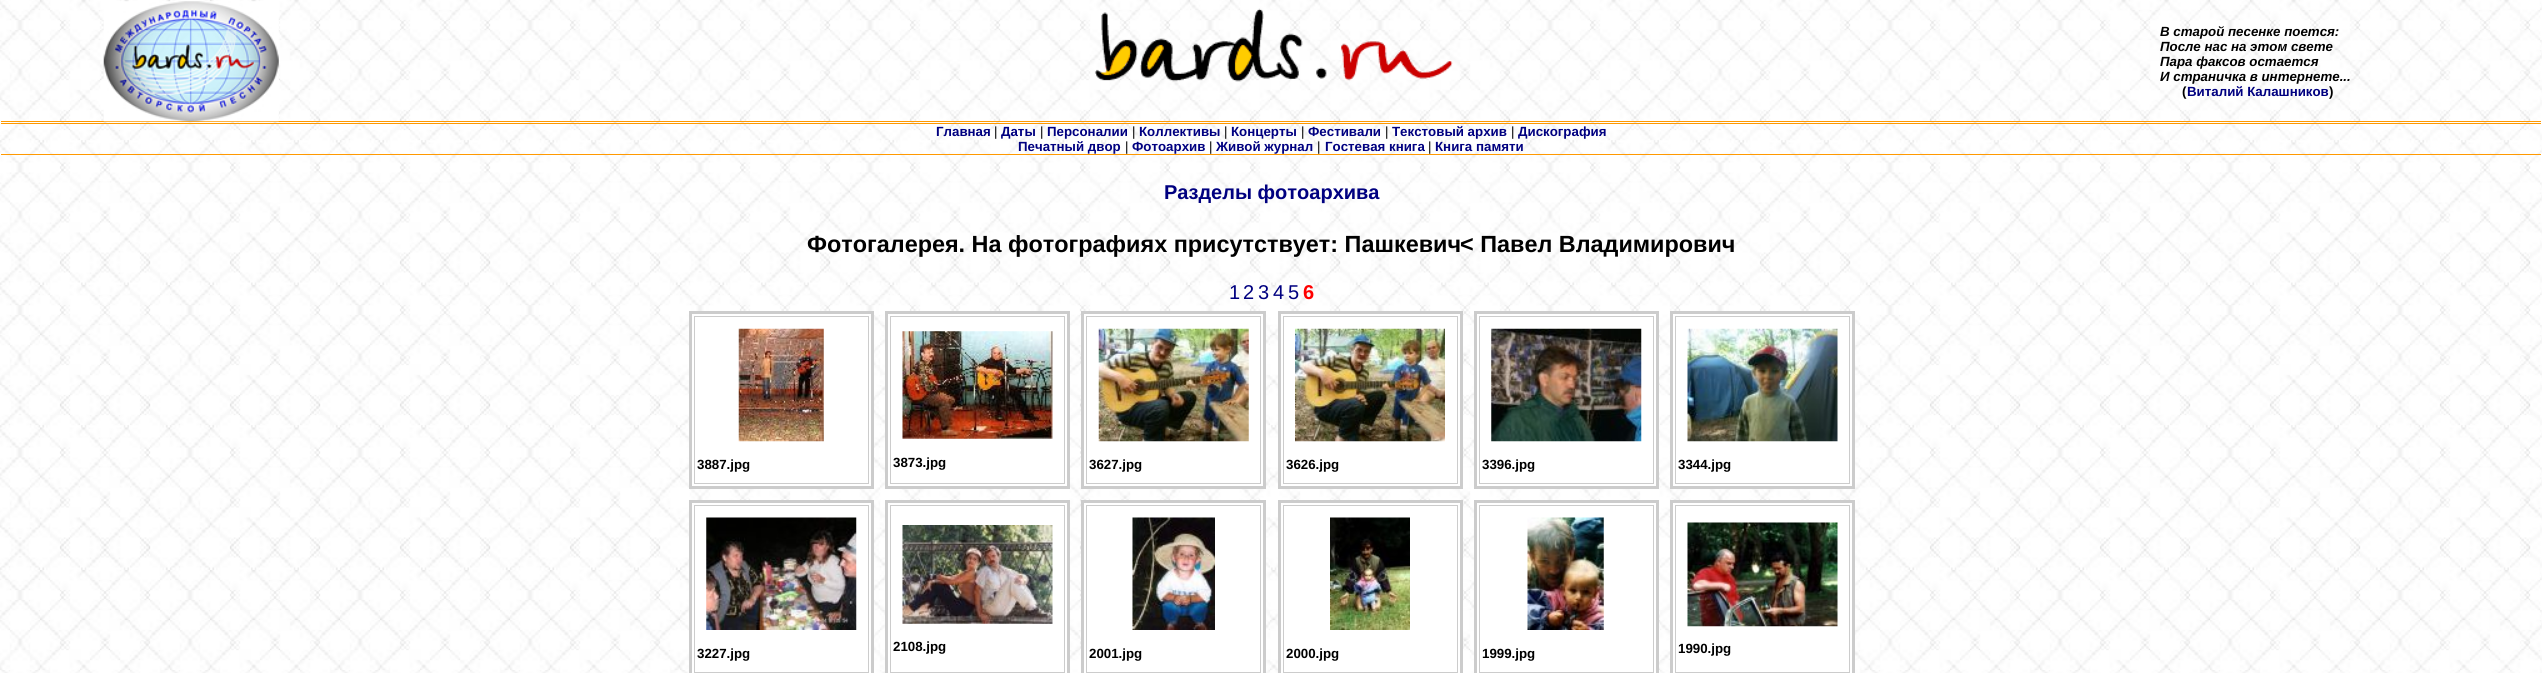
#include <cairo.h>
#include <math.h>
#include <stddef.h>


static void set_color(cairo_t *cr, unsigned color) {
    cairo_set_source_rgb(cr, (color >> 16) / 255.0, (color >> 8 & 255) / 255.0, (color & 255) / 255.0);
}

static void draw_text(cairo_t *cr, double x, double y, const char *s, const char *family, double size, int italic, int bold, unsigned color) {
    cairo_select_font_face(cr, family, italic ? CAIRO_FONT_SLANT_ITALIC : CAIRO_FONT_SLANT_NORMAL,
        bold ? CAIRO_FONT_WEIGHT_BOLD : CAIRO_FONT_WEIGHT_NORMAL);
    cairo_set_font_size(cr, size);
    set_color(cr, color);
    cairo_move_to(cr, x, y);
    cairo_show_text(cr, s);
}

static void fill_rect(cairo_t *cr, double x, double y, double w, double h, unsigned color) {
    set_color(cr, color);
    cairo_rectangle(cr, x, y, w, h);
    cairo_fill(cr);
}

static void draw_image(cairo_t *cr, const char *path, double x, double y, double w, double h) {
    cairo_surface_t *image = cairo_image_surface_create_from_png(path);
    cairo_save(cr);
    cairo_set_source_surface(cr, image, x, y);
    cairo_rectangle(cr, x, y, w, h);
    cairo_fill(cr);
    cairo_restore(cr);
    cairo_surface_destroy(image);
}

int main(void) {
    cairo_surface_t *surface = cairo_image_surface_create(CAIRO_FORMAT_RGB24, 2542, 673);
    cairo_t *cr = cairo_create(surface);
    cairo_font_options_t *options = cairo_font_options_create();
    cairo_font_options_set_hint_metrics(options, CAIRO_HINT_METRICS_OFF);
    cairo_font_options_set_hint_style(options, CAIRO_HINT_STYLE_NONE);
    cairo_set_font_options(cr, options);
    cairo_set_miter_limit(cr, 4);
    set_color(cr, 0xFFFFFF);
    cairo_paint(cr);
    draw_image(cr, "assets/img1.png", 0, 0, 2542, 673);
    fill_rect(cr, 1, 121, 2540, 1, 0xFF9900);
    draw_image(cr, "assets/img2.png", 103, 1, 176, 121);
    draw_image(cr, "assets/img3.png", 1094, 8, 359, 74);
    draw_text(cr, 2160, 36, "В старой песенке поется:", "Liberation Sans", 13.3, 1, 1, 0x000000);
    draw_text(cr, 2160, 51, "После нас на этом свете", "Liberation Sans", 13.3, 1, 1, 0x000000);
    draw_text(cr, 2160, 66, "Пара факсов остается", "Liberation Sans", 13.3, 1, 1, 0x000000);
    draw_text(cr, 2160, 81, "И страничка в интернете...", "Liberation Sans", 13.3, 1, 1, 0x000000);
    draw_text(cr, 2182, 96, "(", "Liberation Sans", 13.3, 0, 1, 0x000000);
    draw_text(cr, 2187, 96, "Виталий Калашников", "Liberation Sans", 13.3, 0, 1, 0x000080);
    draw_text(cr, 2329, 96, ")", "Liberation Sans", 13.3, 0, 1, 0x000000);
    fill_rect(cr, 1, 123, 2540, 1, 0xFF9900);
    draw_text(cr, 936, 136, "Главная", "Liberation Sans", 13.3, 0, 1, 0x000080);
    draw_text(cr, 994, 136, "|", "Liberation Sans", 13.3, 0, 0, 0x000000);
    draw_text(cr, 1001, 136, "Даты", "Liberation Sans", 13.3, 0, 1, 0x000080);
    draw_text(cr, 1040, 136, "|", "Liberation Sans", 13.3, 0, 0, 0x000000);
    draw_text(cr, 1047, 136, "Персоналии", "Liberation Sans", 13.3, 0, 1, 0x000080);
    draw_text(cr, 1132, 136, "|", "Liberation Sans", 13.3, 0, 0, 0x000000);
    draw_text(cr, 1139, 136, "Коллективы", "Liberation Sans", 13.3, 0, 1, 0x000080);
    draw_text(cr, 1224, 136, "|", "Liberation Sans", 13.3, 0, 0, 0x000000);
    draw_text(cr, 1231, 136, "Концерты", "Liberation Sans", 13.3, 0, 1, 0x000080);
    draw_text(cr, 1301, 136, "|", "Liberation Sans", 13.3, 0, 0, 0x000000);
    draw_text(cr, 1308, 136, "Фестивали", "Liberation Sans", 13.3, 0, 1, 0x000080);
    draw_text(cr, 1385, 136, "|", "Liberation Sans", 13.3, 0, 0, 0x000000);
    draw_text(cr, 1392, 136, "Текстовый архив", "Liberation Sans", 13.3, 0, 1, 0x000080);
    draw_text(cr, 1511, 136, "|", "Liberation Sans", 13.3, 0, 0, 0x000000);
    draw_text(cr, 1518, 136, "Дискография", "Liberation Sans", 13.3, 0, 1, 0x000080);
    draw_text(cr, 1018, 151, "Печатный двор", "Liberation Sans", 13.3, 0, 1, 0x000080);
    draw_text(cr, 1125, 151, "|", "Liberation Sans", 13.3, 0, 0, 0x000000);
    draw_text(cr, 1132, 151, "Фотоархив", "Liberation Sans", 13.3, 0, 1, 0x000080);
    draw_text(cr, 1209, 151, "|", "Liberation Sans", 13.3, 0, 0, 0x000000);
    draw_text(cr, 1216, 151, "Живой журнал", "Liberation Sans", 13.3, 0, 1, 0x000080);
    draw_text(cr, 1317, 151, "|", "Liberation Sans", 13.3, 0, 0, 0x000000);
    draw_text(cr, 1325, 151, "Гостевая книга", "Liberation Sans", 13.3, 0, 1, 0x000080);
    draw_text(cr, 1428, 151, "|", "Liberation Sans", 13.3, 0, 0, 0x000000);
    draw_text(cr, 1435, 151, "Книга памяти", "Liberation Sans", 13.3, 0, 1, 0x000080);
    fill_rect(cr, 1, 154, 2540, 1, 0xFF9900);
    draw_text(cr, 1164, 199, "Разделы фотоархива", "Liberation Sans", 20, 0, 1, 0x000080);
    draw_text(cr, 807, 252, "Фотогалерея. На фотографиях присутствует: Пашкевич", "Liberation Sans", 23.4, 0, 1, 0x000000);
    draw_text(cr, 1460, 252, "< Павел Владимирович", "Liberation Sans", 23.4, 0, 1, 0x000000);
    draw_text(cr, 1229, 299, "1", "Liberation Sans", 20, 0, 0, 0x000080);
    draw_text(cr, 1243, 299, "2", "Liberation Sans", 20, 0, 0, 0x000080);
    draw_text(cr, 1258, 299, "3", "Liberation Sans", 20, 0, 0, 0x000080);
    draw_text(cr, 1273, 299, "4", "Liberation Sans", 20, 0, 0, 0x000080);
    draw_text(cr, 1288, 299, "5", "Liberation Sans", 20, 0, 0, 0x000080);
    draw_text(cr, 1303, 299, "6", "Liberation Sans", 20, 0, 1, 0xFF0000);
    set_color(cr, 0xFFFFFF);
    cairo_rectangle(cr, 690.5, 312.5, 182, 175);
    cairo_fill_preserve(cr);
    set_color(cr, 0xCCCCCC);
    cairo_set_line_width(cr, 3);
    cairo_stroke(cr);
    cairo_rectangle(cr, 694.5, 316.5, 174, 167);
    cairo_set_line_width(cr, 1);
    cairo_stroke(cr);
    draw_image(cr, "assets/img4.png", 738, 328, 86, 114);
    draw_text(cr, 697, 469, "3887.jpg", "Liberation Sans", 13.3, 0, 1, 0x000000);
    set_color(cr, 0xFFFFFF);
    cairo_rectangle(cr, 886.5, 312.5, 182, 175);
    cairo_fill_preserve(cr);
    set_color(cr, 0xCCCCCC);
    cairo_set_line_width(cr, 3);
    cairo_stroke(cr);
    cairo_rectangle(cr, 890.5, 316.5, 174, 167);
    cairo_set_line_width(cr, 1);
    cairo_stroke(cr);
    draw_image(cr, "assets/img5.png", 902, 331, 151, 108);
    draw_text(cr, 893, 467, "3873.jpg", "Liberation Sans", 13.3, 0, 1, 0x000000);
    set_color(cr, 0xFFFFFF);
    cairo_rectangle(cr, 1082.5, 312.5, 182, 175);
    cairo_fill_preserve(cr);
    set_color(cr, 0xCCCCCC);
    cairo_set_line_width(cr, 3);
    cairo_stroke(cr);
    cairo_rectangle(cr, 1086.5, 316.5, 174, 167);
    cairo_set_line_width(cr, 1);
    cairo_stroke(cr);
    draw_image(cr, "assets/img6.png", 1098, 328, 151, 114);
    draw_text(cr, 1089, 469, "3627.jpg", "Liberation Sans", 13.3, 0, 1, 0x000000);
    set_color(cr, 0xFFFFFF);
    cairo_rectangle(cr, 1279.5, 312.5, 182, 175);
    cairo_fill_preserve(cr);
    set_color(cr, 0xCCCCCC);
    cairo_set_line_width(cr, 3);
    cairo_stroke(cr);
    cairo_rectangle(cr, 1283.5, 316.5, 174, 167);
    cairo_set_line_width(cr, 1);
    cairo_stroke(cr);
    draw_image(cr, "assets/img7.png", 1295, 328, 150, 114);
    draw_text(cr, 1286, 469, "3626.jpg", "Liberation Sans", 13.3, 0, 1, 0x000000);
    set_color(cr, 0xFFFFFF);
    cairo_rectangle(cr, 1475.5, 312.5, 182, 175);
    cairo_fill_preserve(cr);
    set_color(cr, 0xCCCCCC);
    cairo_set_line_width(cr, 3);
    cairo_stroke(cr);
    cairo_rectangle(cr, 1479.5, 316.5, 174, 167);
    cairo_set_line_width(cr, 1);
    cairo_stroke(cr);
    draw_image(cr, "assets/img8.png", 1491, 328, 151, 114);
    draw_text(cr, 1482, 469, "3396.jpg", "Liberation Sans", 13.3, 0, 1, 0x000000);
    set_color(cr, 0xFFFFFF);
    cairo_rectangle(cr, 1671.5, 312.5, 182, 175);
    cairo_fill_preserve(cr);
    set_color(cr, 0xCCCCCC);
    cairo_set_line_width(cr, 3);
    cairo_stroke(cr);
    cairo_rectangle(cr, 1675.5, 316.5, 174, 167);
    cairo_set_line_width(cr, 1);
    cairo_stroke(cr);
    draw_image(cr, "assets/img9.png", 1687, 328, 151, 114);
    draw_text(cr, 1678, 469, "3344.jpg", "Liberation Sans", 13.3, 0, 1, 0x000000);
    set_color(cr, 0xFFFFFF);
    cairo_rectangle(cr, 690.5, 501.5, 182, 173);
    cairo_fill_preserve(cr);
    set_color(cr, 0xCCCCCC);
    cairo_set_line_width(cr, 3);
    cairo_stroke(cr);
    cairo_rectangle(cr, 694.5, 505.5, 174, 167);
    cairo_set_line_width(cr, 1);
    cairo_stroke(cr);
    draw_image(cr, "assets/img10.png", 706, 517, 151, 113);
    draw_text(cr, 697, 658, "3227.jpg", "Liberation Sans", 13.3, 0, 1, 0x000000);
    set_color(cr, 0xFFFFFF);
    cairo_rectangle(cr, 886.5, 501.5, 182, 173);
    cairo_fill_preserve(cr);
    set_color(cr, 0xCCCCCC);
    cairo_set_line_width(cr, 3);
    cairo_stroke(cr);
    cairo_rectangle(cr, 890.5, 505.5, 174, 167);
    cairo_set_line_width(cr, 1);
    cairo_stroke(cr);
    draw_image(cr, "assets/img11.png", 902, 525, 151, 99);
    draw_text(cr, 893, 651, "2108.jpg", "Liberation Sans", 13.3, 0, 1, 0x000000);
    set_color(cr, 0xFFFFFF);
    cairo_rectangle(cr, 1082.5, 501.5, 182, 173);
    cairo_fill_preserve(cr);
    set_color(cr, 0xCCCCCC);
    cairo_set_line_width(cr, 3);
    cairo_stroke(cr);
    cairo_rectangle(cr, 1086.5, 505.5, 174, 167);
    cairo_set_line_width(cr, 1);
    cairo_stroke(cr);
    draw_image(cr, "assets/img12.png", 1132, 517, 83, 113);
    draw_text(cr, 1089, 658, "2001.jpg", "Liberation Sans", 13.3, 0, 1, 0x000000);
    set_color(cr, 0xFFFFFF);
    cairo_rectangle(cr, 1279.5, 501.5, 182, 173);
    cairo_fill_preserve(cr);
    set_color(cr, 0xCCCCCC);
    cairo_set_line_width(cr, 3);
    cairo_stroke(cr);
    cairo_rectangle(cr, 1283.5, 505.5, 174, 167);
    cairo_set_line_width(cr, 1);
    cairo_stroke(cr);
    draw_image(cr, "assets/img13.png", 1330, 517, 80, 113);
    draw_text(cr, 1286, 658, "2000.jpg", "Liberation Sans", 13.3, 0, 1, 0x000000);
    set_color(cr, 0xFFFFFF);
    cairo_rectangle(cr, 1475.5, 501.5, 182, 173);
    cairo_fill_preserve(cr);
    set_color(cr, 0xCCCCCC);
    cairo_set_line_width(cr, 3);
    cairo_stroke(cr);
    cairo_rectangle(cr, 1479.5, 505.5, 174, 167);
    cairo_set_line_width(cr, 1);
    cairo_stroke(cr);
    draw_image(cr, "assets/img14.png", 1527, 517, 77, 113);
    draw_text(cr, 1482, 658, "1999.jpg", "Liberation Sans", 13.3, 0, 1, 0x000000);
    set_color(cr, 0xFFFFFF);
    cairo_rectangle(cr, 1671.5, 501.5, 182, 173);
    cairo_fill_preserve(cr);
    set_color(cr, 0xCCCCCC);
    cairo_set_line_width(cr, 3);
    cairo_stroke(cr);
    cairo_rectangle(cr, 1675.5, 505.5, 174, 167);
    cairo_set_line_width(cr, 1);
    cairo_stroke(cr);
    draw_image(cr, "assets/img15.png", 1687, 522, 151, 105);
    draw_text(cr, 1678, 653, "1990.jpg", "Liberation Sans", 13.3, 0, 1, 0x000000);
    cairo_surface_write_to_png(surface, "output.png");
    cairo_font_options_destroy(options);
    cairo_destroy(cr);
    cairo_surface_destroy(surface);
    return 0;
}
